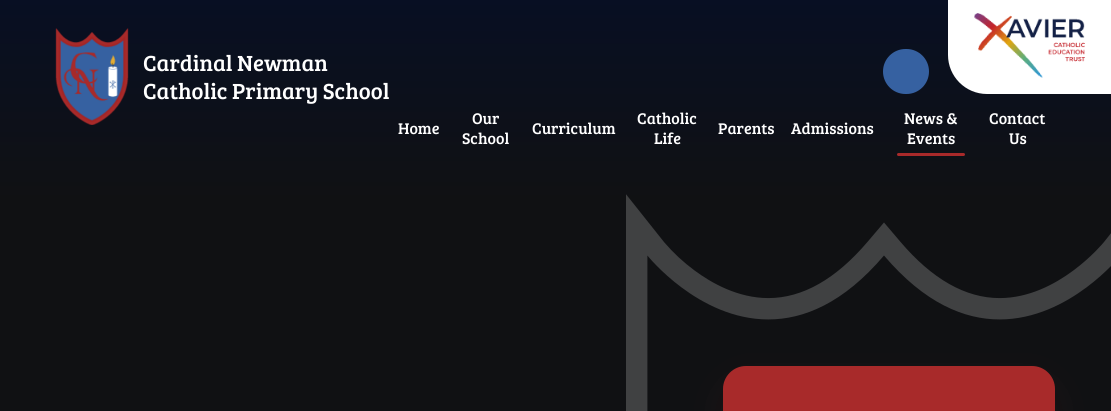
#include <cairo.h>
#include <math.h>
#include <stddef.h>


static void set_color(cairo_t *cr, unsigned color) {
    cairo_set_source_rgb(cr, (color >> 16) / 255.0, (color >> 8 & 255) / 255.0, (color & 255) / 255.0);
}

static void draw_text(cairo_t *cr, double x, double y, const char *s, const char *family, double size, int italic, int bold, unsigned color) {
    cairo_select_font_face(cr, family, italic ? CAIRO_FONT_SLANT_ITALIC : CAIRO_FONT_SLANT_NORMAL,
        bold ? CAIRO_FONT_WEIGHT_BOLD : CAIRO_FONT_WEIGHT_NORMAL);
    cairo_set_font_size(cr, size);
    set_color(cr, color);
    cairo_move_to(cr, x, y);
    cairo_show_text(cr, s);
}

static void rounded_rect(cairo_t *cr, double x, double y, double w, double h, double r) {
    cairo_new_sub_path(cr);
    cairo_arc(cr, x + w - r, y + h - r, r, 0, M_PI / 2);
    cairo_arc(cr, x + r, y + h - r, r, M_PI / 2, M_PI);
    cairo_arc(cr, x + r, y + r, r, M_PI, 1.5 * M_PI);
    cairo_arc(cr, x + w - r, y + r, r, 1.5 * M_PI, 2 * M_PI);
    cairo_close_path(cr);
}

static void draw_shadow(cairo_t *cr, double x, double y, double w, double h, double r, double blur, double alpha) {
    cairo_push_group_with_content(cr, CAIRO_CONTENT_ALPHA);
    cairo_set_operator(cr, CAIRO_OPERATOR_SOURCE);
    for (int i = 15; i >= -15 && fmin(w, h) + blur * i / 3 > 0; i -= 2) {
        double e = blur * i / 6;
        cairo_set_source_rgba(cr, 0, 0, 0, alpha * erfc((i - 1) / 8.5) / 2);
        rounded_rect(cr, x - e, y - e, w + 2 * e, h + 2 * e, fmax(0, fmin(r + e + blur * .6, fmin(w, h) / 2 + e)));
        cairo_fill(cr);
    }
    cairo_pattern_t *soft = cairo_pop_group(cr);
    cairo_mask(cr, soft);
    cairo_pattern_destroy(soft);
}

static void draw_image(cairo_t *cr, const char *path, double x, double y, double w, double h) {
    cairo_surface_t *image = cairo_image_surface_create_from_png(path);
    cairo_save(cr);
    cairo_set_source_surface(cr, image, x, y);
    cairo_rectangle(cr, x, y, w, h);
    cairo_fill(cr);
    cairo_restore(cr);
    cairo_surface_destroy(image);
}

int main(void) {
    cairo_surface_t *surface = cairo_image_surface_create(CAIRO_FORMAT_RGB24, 1111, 411);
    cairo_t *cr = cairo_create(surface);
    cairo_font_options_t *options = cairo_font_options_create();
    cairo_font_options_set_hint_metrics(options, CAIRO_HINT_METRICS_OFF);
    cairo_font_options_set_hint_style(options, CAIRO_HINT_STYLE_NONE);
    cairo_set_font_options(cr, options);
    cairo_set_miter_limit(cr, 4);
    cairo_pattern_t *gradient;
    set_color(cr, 0xFFFFFF);
    cairo_paint(cr);
    gradient = cairo_pattern_create_linear(556, 0, 556, 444);
    cairo_pattern_add_color_stop_rgba(gradient, 0, 0.031, 0.059, 0.137, 1);
    cairo_pattern_add_color_stop_rgba(gradient, 0.45, 0.063, 0.067, 0.075, 1);
    cairo_pattern_add_color_stop_rgba(gradient, 1, 0.063, 0.067, 0.075, 1);
    cairo_set_source(cr, gradient);
    cairo_pattern_destroy(gradient);
    cairo_rectangle(cr, 0, 0, 1111, 411);
    cairo_fill(cr);
    draw_image(cr, "assets/img1.png", 626, 194, 485, 217);
    draw_image(cr, "assets/img2.png", 55, 28, 74, 97);
    draw_text(cr, 143, 71, "Cardinal Newman", "Bree Serif", 22.6, 0, 0, 0xFFFFFF);
    draw_text(cr, 143, 99, "Catholic Primary School", "Bree Serif", 22.6, 0, 0, 0xFFFFFF);
    set_color(cr, 0x3661A1);
    rounded_rect(cr, 883, 49, 46, 45, 22.5);
    cairo_fill(cr);
    set_color(cr, 0xFFFFFF);
    cairo_new_path(cr);
    cairo_move_to(cr, 948, 0);
    cairo_line_to(cr, 1111, 0);
    cairo_line_to(cr, 1111, 94);
    cairo_line_to(cr, 987, 94);
    cairo_curve_to(cr, 965.5, 94, 948, 76.5, 948, 55);
    cairo_close_path(cr);
    cairo_fill(cr);
    draw_image(cr, "assets/img3.png", 974, 13, 111, 65);
    draw_text(cr, 398, 134, "Home", "Bree Serif", 16, 0, 0, 0xFFFFFF);
    draw_text(cr, 472, 124, "Our", "Bree Serif", 16, 0, 0, 0xFFFFFF);
    draw_text(cr, 462, 144, "School", "Bree Serif", 16, 0, 0, 0xFFFFFF);
    draw_text(cr, 532, 134, "Curriculum", "Bree Serif", 16, 0, 0, 0xFFFFFF);
    draw_text(cr, 637, 124, "Catholic", "Bree Serif", 16, 0, 0, 0xFFFFFF);
    draw_text(cr, 654, 144, "Life", "Bree Serif", 16, 0, 0, 0xFFFFFF);
    draw_text(cr, 718, 134, "Parents", "Bree Serif", 16, 0, 0, 0xFFFFFF);
    draw_text(cr, 791, 134, "Admissions", "Bree Serif", 16, 0, 0, 0xFFFFFF);
    draw_text(cr, 904, 124, "News &", "Bree Serif", 16, 0, 0, 0xFFFFFF);
    draw_text(cr, 907, 144, "Events", "Bree Serif", 16, 0, 0, 0xFFFFFF);
    set_color(cr, 0xA82A2A);
    rounded_rect(cr, 897, 153, 68, 3, 1.5);
    cairo_fill(cr);
    draw_text(cr, 989, 124, "Contact", "Bree Serif", 16, 0, 0, 0xFFFFFF);
    draw_text(cr, 1009, 144, "Us", "Bree Serif", 16, 0, 0, 0xFFFFFF);
    set_color(cr, 0xA82A2A);
    draw_shadow(cr, 723, 382, 332, 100, 23, 16, 0.1);
    set_color(cr, 0xA82A2A);
    rounded_rect(cr, 723, 366, 332, 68, 23);
    cairo_fill(cr);
    cairo_surface_write_to_png(surface, "output.png");
    cairo_font_options_destroy(options);
    cairo_destroy(cr);
    cairo_surface_destroy(surface);
    return 0;
}
